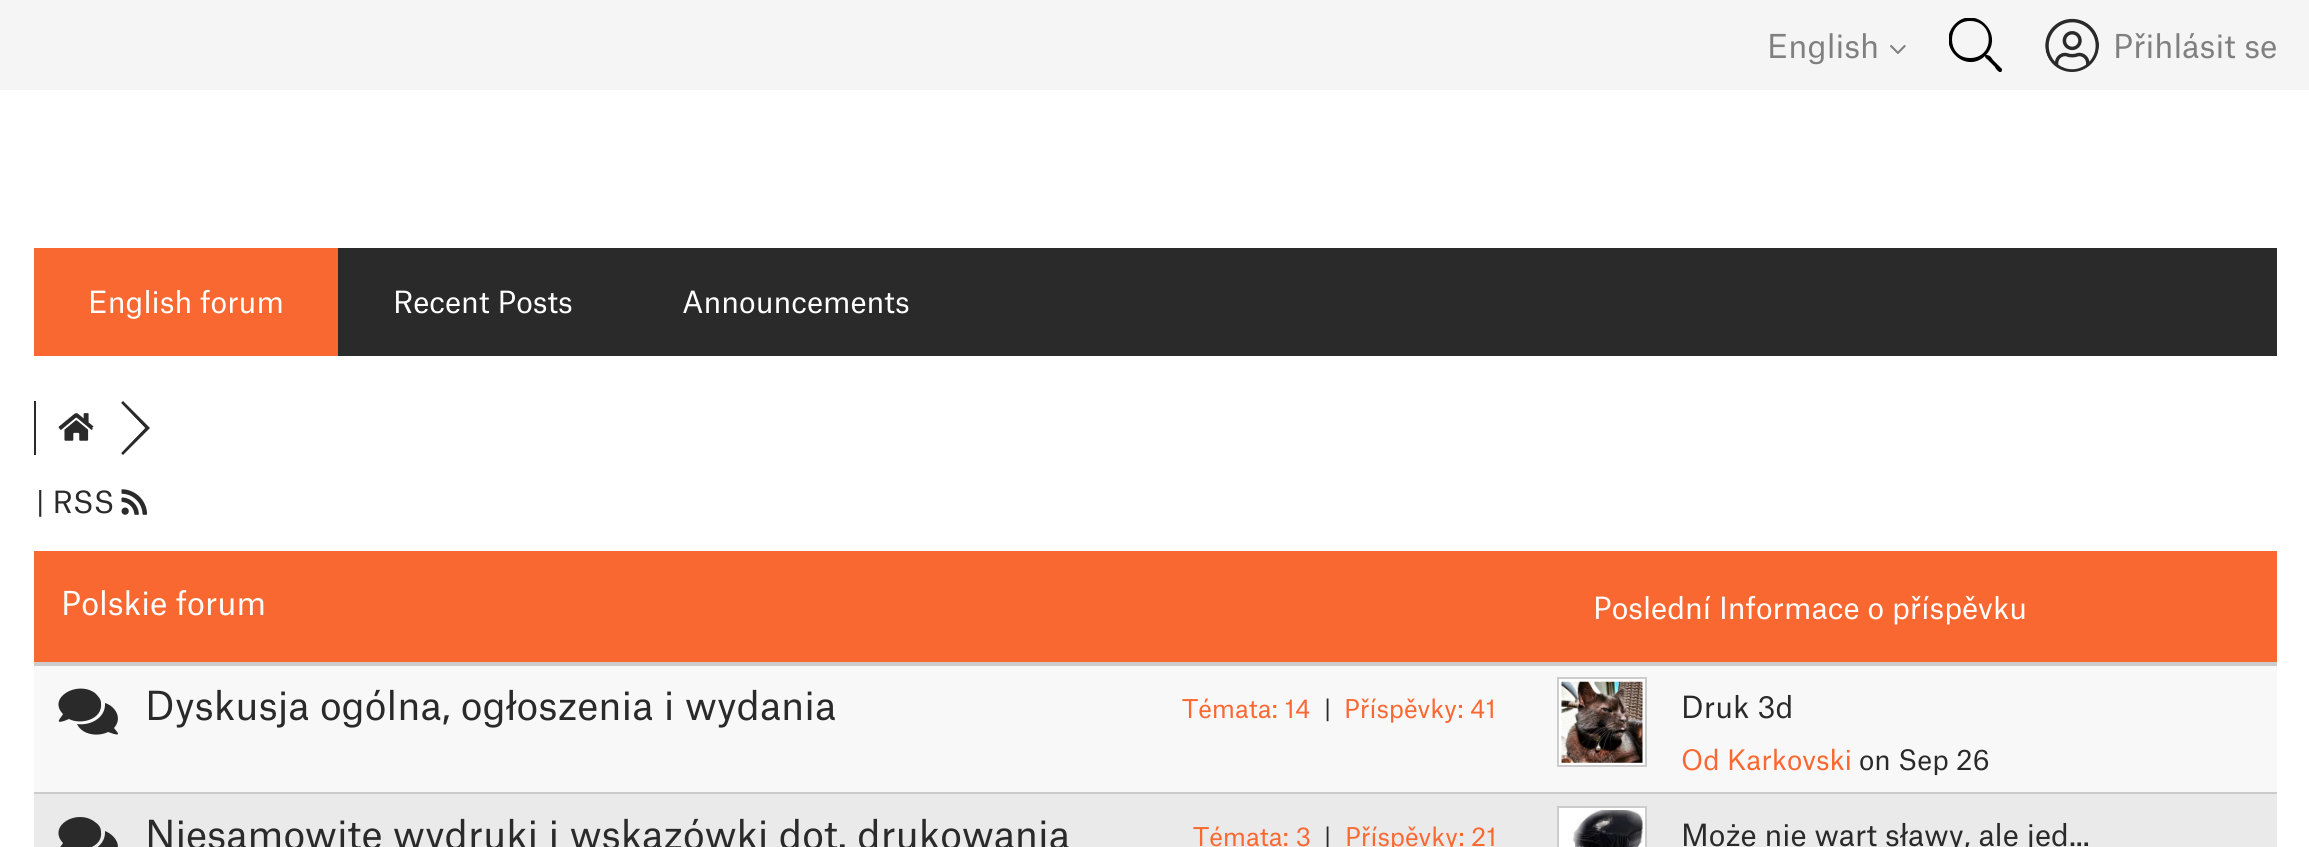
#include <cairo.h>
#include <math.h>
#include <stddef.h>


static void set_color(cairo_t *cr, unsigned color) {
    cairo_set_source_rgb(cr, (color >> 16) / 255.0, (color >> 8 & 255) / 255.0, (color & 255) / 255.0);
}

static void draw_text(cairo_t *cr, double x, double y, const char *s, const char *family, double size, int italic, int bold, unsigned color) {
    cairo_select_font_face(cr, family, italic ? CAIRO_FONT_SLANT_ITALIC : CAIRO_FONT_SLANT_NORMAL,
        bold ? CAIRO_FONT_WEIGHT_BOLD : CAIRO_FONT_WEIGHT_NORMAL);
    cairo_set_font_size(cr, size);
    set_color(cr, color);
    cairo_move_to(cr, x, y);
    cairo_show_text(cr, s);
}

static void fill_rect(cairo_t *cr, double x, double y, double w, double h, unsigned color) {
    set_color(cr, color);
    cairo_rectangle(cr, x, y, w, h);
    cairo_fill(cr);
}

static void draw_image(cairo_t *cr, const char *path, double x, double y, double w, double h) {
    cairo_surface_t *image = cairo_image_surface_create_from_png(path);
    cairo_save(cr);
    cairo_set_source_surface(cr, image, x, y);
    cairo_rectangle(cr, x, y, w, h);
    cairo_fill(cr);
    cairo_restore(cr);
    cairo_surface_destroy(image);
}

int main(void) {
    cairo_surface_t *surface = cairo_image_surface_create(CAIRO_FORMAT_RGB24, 2309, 847);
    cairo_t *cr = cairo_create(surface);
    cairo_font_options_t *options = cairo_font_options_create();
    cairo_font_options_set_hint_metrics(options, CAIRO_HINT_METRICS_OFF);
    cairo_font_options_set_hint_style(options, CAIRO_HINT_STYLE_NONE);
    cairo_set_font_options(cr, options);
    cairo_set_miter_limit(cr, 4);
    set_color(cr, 0xFFFFFF);
    cairo_paint(cr);
    fill_rect(cr, 0, 0, 2309, 90, 0xF5F5F5);
    draw_text(cr, 1767, 58, "English", "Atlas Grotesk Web", 31.5, 0, 0, 0x808080);
    draw_image(cr, "assets/img1.png", 1890, 45, 16, 9);
    cairo_save(cr);
    cairo_rectangle(cr, 1949, 18, 54, 54);
    cairo_clip(cr);
    set_color(cr, 0x000000);
    cairo_new_path(cr);
    cairo_move_to(cr, 2002, 69);
    cairo_line_to(cr, 1993, 60);
    cairo_curve_to(cr, 1991, 57, 1990, 55, 1986, 55);
    cairo_curve_to(cr, 2005, 34, 1975, 4, 1955, 24);
    cairo_curve_to(cr, 1935, 45, 1965, 75, 1985, 56);
    cairo_curve_to(cr, 1985, 58, 1986, 58, 1988, 60);
    cairo_line_to(cr, 1995, 67);
    cairo_curve_to(cr, 1995, 68, 2001, 76, 2002, 70);
    cairo_close_path(cr);
    cairo_move_to(cr, 1970, 58);
    cairo_curve_to(cr, 1946, 58, 1946, 21, 1970, 21);
    cairo_curve_to(cr, 1995, 21, 1995, 58, 1970, 58);
    cairo_close_path(cr);
    cairo_fill(cr);
    cairo_restore(cr);
    draw_image(cr, "assets/img2.png", 2045, 18, 54, 54);
    draw_text(cr, 2113, 58, "Přihlásit se", "Atlas Grotesk Web", 31.5, 0, 0, 0x808080);
    fill_rect(cr, 338, 248, 1939, 108, 0x2A2A2A);
    fill_rect(cr, 34, 248, 304, 108, 0xFA6831);
    draw_text(cr, 88, 313, "English forum", "Atlas Grotesk Web", 29.25, 0, 0, 0xFFFFFF);
    draw_text(cr, 393, 313, "Recent Posts", "Atlas Grotesk Web", 29.25, 0, 0, 0xFFFFFF);
    draw_text(cr, 682, 313, "Announcements", "Atlas Grotesk Web", 29.25, 0, 0, 0xFFFFFF);
    fill_rect(cr, 34, 401, 2, 54, 0x2A2A2A);
    draw_image(cr, "assets/img3.png", 58, 413, 36, 28);
    cairo_new_path(cr);
    cairo_move_to(cr, 123, 401);
    cairo_line_to(cr, 121, 403);
    cairo_line_to(cr, 145, 428);
    cairo_line_to(cr, 121, 453);
    cairo_line_to(cr, 123, 455);
    cairo_line_to(cr, 150, 428);
    cairo_close_path(cr);
    cairo_fill(cr);
    set_color(cr, 0xFFFFFF);
    cairo_new_path(cr);
    cairo_move_to(cr, 119, 401);
    cairo_line_to(cr, 145, 428);
    cairo_line_to(cr, 119, 455);
    cairo_line_to(cr, 92, 428);
    cairo_close_path(cr);
    cairo_fill(cr);
    draw_text(cr, 36, 513, "| RSS", "Atlas Grotesk Web", 29.25, 0, 0, 0x2A2A2A);
    draw_image(cr, "assets/img4.png", 121, 489, 27, 26);
    fill_rect(cr, 34, 551, 2243, 111, 0xFA6831);
    fill_rect(cr, 34, 662, 2243, 4, 0xCCCCCC);
    draw_text(cr, 61, 615, "Polskie forum", "Atlas Grotesk Web", 31.5, 0, 0, 0xFFFFFF);
    draw_text(cr, 1593, 619, "Poslední Informace o příspěvku", "Atlas Grotesk Web", 29.25, 0, 0, 0xFFFFFF);
    fill_rect(cr, 34, 666, 2243, 126, 0xF8F8F8);
    set_color(cr, 0x2A2A2A);
    cairo_new_path(cr);
    cairo_move_to(cr, 95, 693);
    cairo_curve_to(cr, 98, 696, 101, 699, 101, 703);
    cairo_curve_to(cr, 103, 720, 80, 725, 69, 719);
    cairo_line_to(cr, 64, 721);
    cairo_curve_to(cr, 54, 724, 61, 718, 63, 714);
    cairo_curve_to(cr, 47, 698, 77, 680, 95, 693);
    cairo_close_path(cr);
    cairo_move_to(cr, 114, 728);
    cairo_curve_to(cr, 116, 731, 122, 736, 114, 734);
    cairo_line_to(cr, 108, 732);
    cairo_curve_to(cr, 98, 737, 82, 735, 77, 724);
    cairo_curve_to(cr, 90, 726, 106, 718, 105, 703);
    cairo_curve_to(cr, 115, 706, 123, 718, 114, 728);
    cairo_close_path(cr);
    cairo_fill(cr);
    draw_text(cr, 145, 720, "Dyskusja ogólna, ogłoszenia i wydania", "Atlas Grotesk Web", 38.25, 0, 0, 0x2A2A2A);
    draw_text(cr, 1182, 718, "Témata: 14", "Atlas Grotesk Web", 24.75, 0, 0, 0xFA6831);
    draw_text(cr, 1324, 718, "|", "Atlas Grotesk Web", 24.75, 0, 0, 0x2A2A2A);
    draw_text(cr, 1344, 718, "Příspěvky: 41", "Atlas Grotesk Web", 24.75, 0, 0, 0xFA6831);
    set_color(cr, 0xFFFFFF);
    cairo_rectangle(cr, 1558, 678, 88, 88);
    cairo_fill_preserve(cr);
    set_color(cr, 0xCCCCCC);
    cairo_stroke(cr);
    draw_image(cr, "assets/img5.png", 1561, 681, 82, 82);
    draw_text(cr, 1681, 718, "Druk 3d", "Atlas Grotesk Web", 29.25, 0, 0, 0x2A2A2A);
    draw_text(cr, 1681, 770, "Od Karkovski", "Atlas Grotesk Web", 27, 0, 0, 0xFA6831);
    draw_text(cr, 1859, 770, "on Sep 26", "Atlas Grotesk Web", 27, 0, 0, 0x2A2A2A);
    fill_rect(cr, 34, 792, 2243, 2, 0xCCCCCC);
    fill_rect(cr, 34, 794, 2243, 53, 0xEAEAEA);
    set_color(cr, 0x2A2A2A);
    cairo_new_path(cr);
    cairo_move_to(cr, 95, 822);
    cairo_curve_to(cr, 98, 824, 101, 827, 101, 832);
    cairo_curve_to(cr, 103, 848, 80, 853, 69, 847);
    cairo_line_to(cr, 64, 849);
    cairo_curve_to(cr, 54, 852, 61, 847, 63, 843);
    cairo_curve_to(cr, 47, 826, 77, 808, 95, 822);
    cairo_close_path(cr);
    cairo_move_to(cr, 114, 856);
    cairo_curve_to(cr, 116, 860, 122, 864, 114, 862);
    cairo_line_to(cr, 108, 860);
    cairo_curve_to(cr, 98, 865, 82, 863, 77, 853);
    cairo_curve_to(cr, 90, 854, 106, 846, 105, 831);
    cairo_curve_to(cr, 115, 835, 123, 846, 114, 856);
    cairo_close_path(cr);
    cairo_fill(cr);
    draw_text(cr, 145, 849, "Niesamowite wydruki i wskazówki dot. drukowania", "Atlas Grotesk Web", 38.25, 0, 0, 0x2A2A2A);
    draw_text(cr, 1193, 846, "Témata: 3", "Atlas Grotesk Web", 24.75, 0, 0, 0xFA6831);
    draw_text(cr, 1324, 846, "|", "Atlas Grotesk Web", 24.75, 0, 0, 0x2A2A2A);
    draw_text(cr, 1345, 846, "Příspěvky: 21", "Atlas Grotesk Web", 24.75, 0, 0, 0xFA6831);
    set_color(cr, 0xFFFFFF);
    cairo_rectangle(cr, 1558, 807, 88, 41);
    cairo_fill_preserve(cr);
    set_color(cr, 0xCCCCCC);
    cairo_stroke(cr);
    draw_image(cr, "assets/img6.png", 1568, 810, 75, 37);
    draw_text(cr, 1681, 846, "Może nie wart sławy, ale jed...", "Atlas Grotesk Web", 29.25, 0, 0, 0x2A2A2A);
    cairo_surface_write_to_png(surface, "output.png");
    cairo_font_options_destroy(options);
    cairo_destroy(cr);
    cairo_surface_destroy(surface);
    return 0;
}
